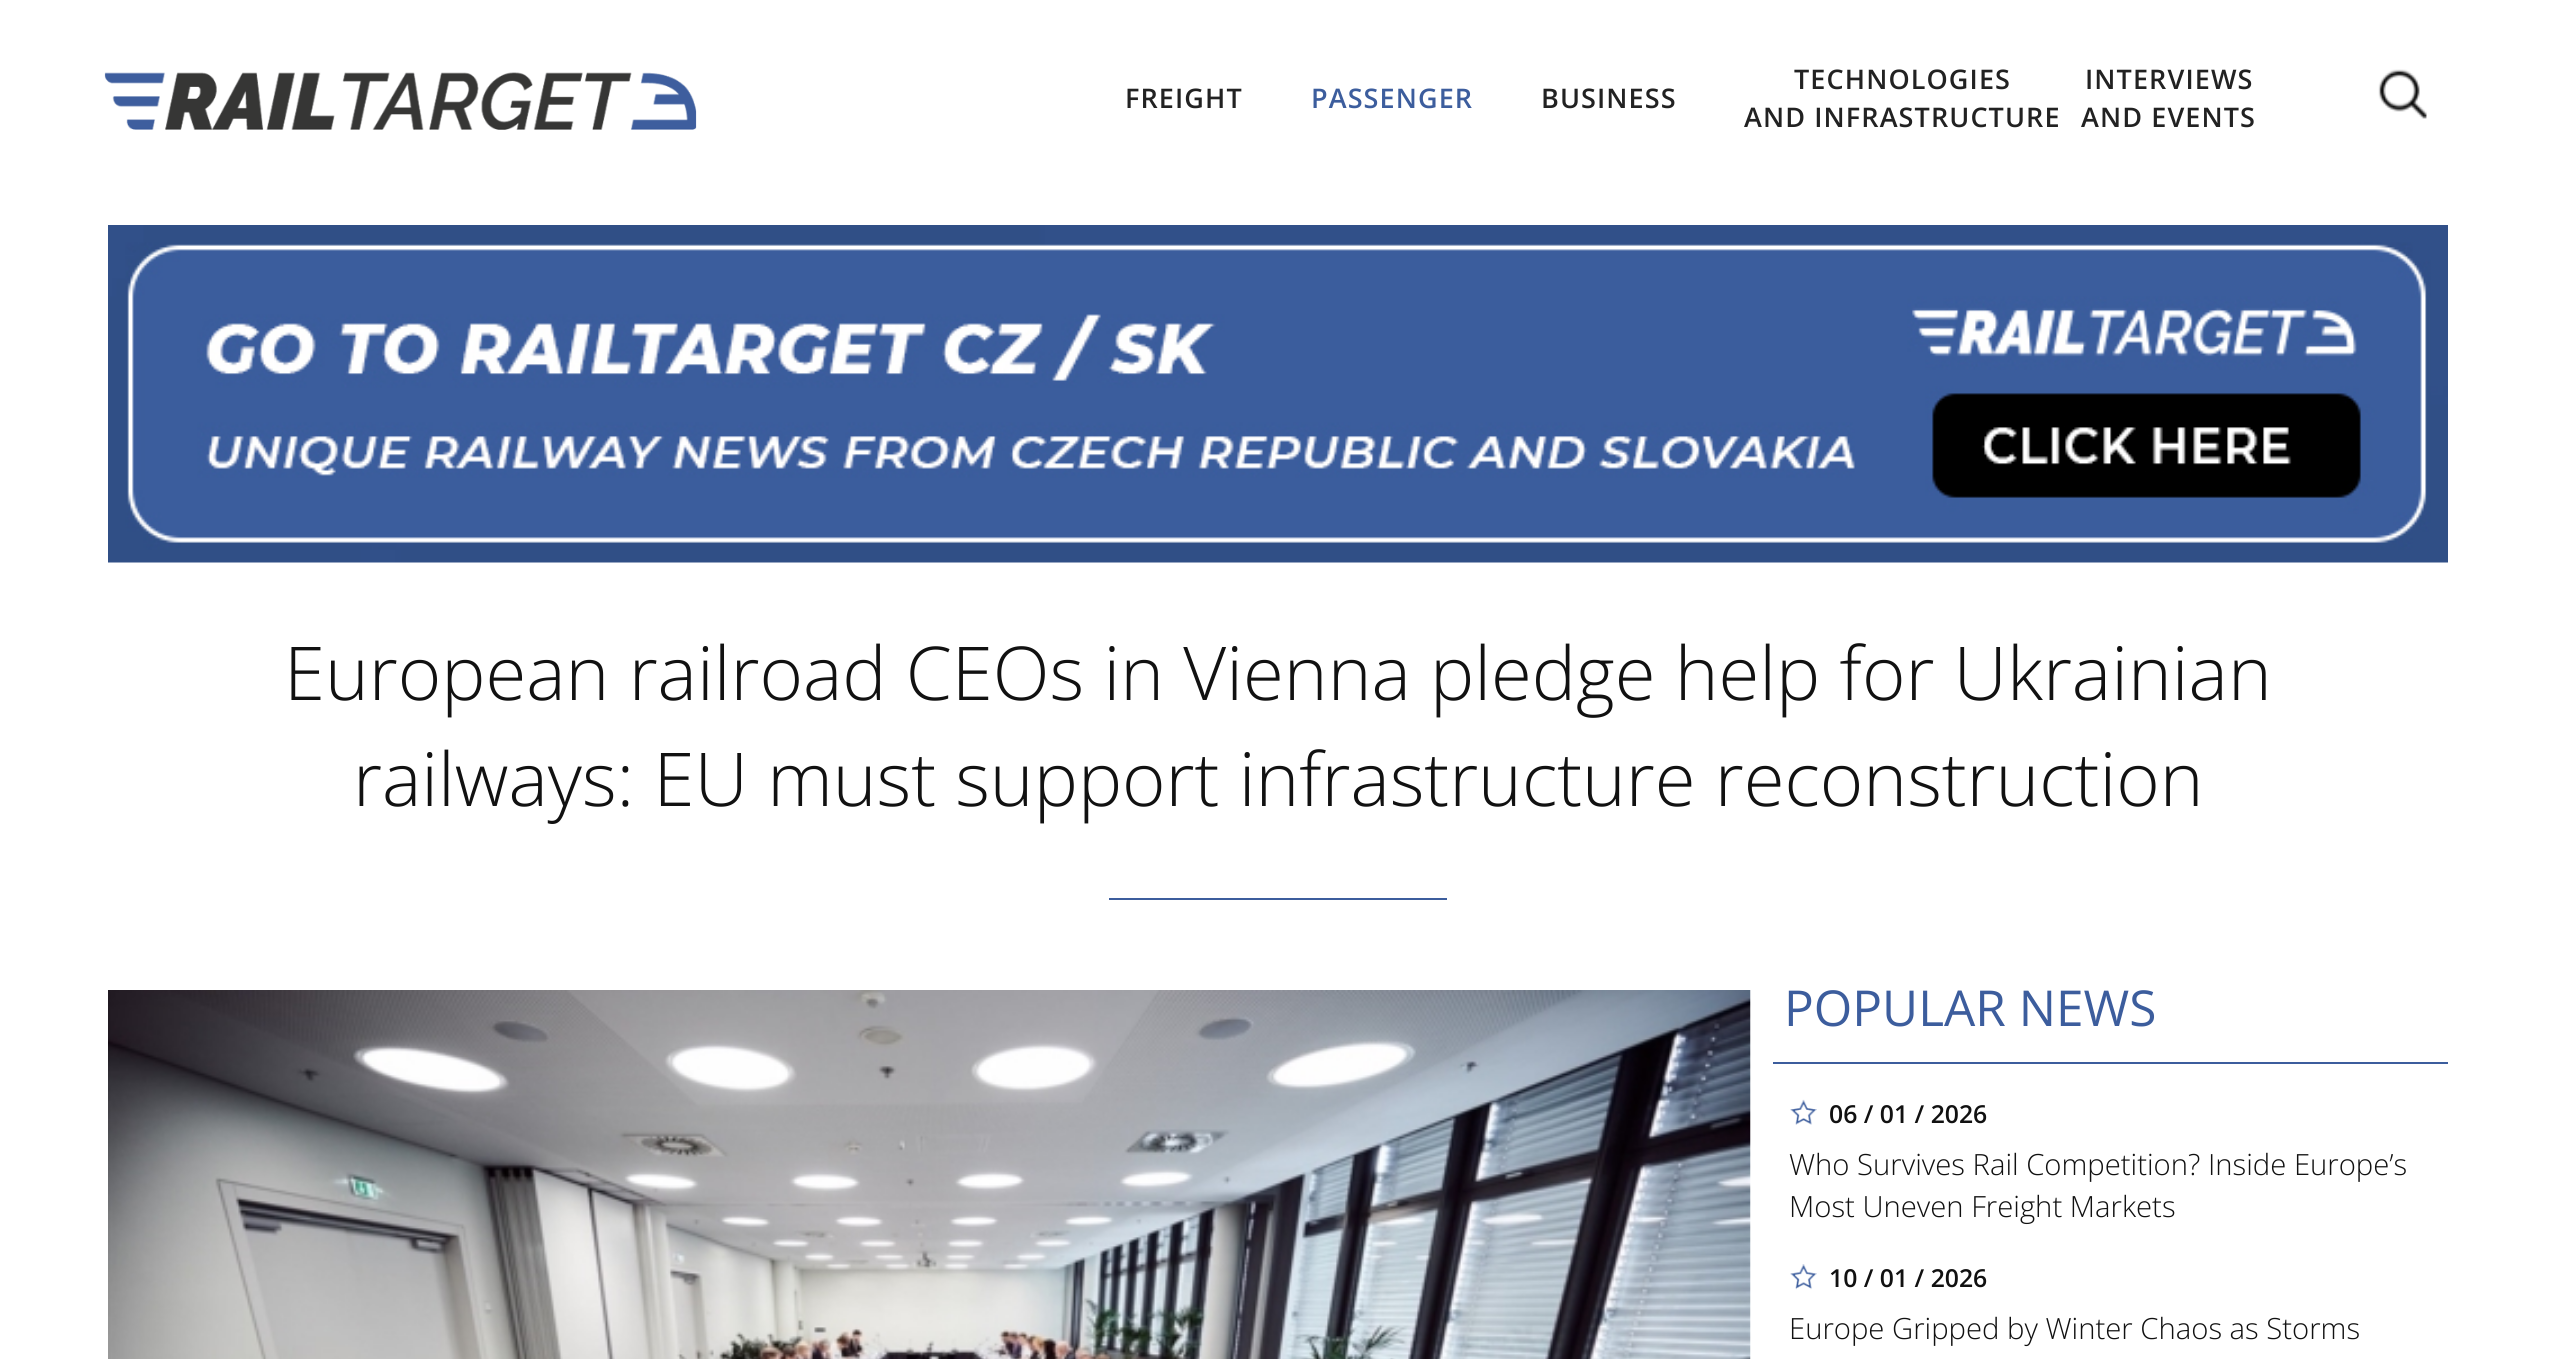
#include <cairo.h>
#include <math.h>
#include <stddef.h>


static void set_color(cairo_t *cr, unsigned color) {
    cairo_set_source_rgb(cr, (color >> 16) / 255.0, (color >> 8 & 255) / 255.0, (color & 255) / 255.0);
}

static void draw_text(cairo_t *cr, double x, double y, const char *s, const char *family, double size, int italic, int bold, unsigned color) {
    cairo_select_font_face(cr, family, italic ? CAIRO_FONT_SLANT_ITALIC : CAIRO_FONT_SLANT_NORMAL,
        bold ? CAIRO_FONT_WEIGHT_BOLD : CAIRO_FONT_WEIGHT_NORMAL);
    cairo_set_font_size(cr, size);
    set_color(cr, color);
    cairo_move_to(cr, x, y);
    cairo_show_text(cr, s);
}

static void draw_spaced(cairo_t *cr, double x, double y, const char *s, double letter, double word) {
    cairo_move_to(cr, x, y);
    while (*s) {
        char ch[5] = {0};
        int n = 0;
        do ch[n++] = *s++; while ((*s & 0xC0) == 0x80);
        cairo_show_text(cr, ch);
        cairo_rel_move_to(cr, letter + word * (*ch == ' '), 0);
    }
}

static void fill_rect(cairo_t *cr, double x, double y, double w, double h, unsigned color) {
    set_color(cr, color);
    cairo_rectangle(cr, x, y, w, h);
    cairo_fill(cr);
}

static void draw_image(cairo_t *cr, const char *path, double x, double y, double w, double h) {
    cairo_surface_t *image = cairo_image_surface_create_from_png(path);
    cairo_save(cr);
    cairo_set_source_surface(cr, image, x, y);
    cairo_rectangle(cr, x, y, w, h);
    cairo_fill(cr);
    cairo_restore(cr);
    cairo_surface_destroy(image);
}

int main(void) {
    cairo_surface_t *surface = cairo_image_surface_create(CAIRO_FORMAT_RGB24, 2555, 1359);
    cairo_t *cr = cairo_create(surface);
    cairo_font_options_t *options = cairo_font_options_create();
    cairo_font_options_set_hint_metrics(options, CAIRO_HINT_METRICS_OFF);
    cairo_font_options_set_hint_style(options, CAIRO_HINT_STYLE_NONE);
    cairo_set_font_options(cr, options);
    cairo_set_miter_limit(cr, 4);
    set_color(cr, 0xFFFFFF);
    cairo_paint(cr);
    draw_image(cr, "assets/img1.png", 104, 72, 593, 58);
    cairo_select_font_face(cr, "Open Sans SemiBold", CAIRO_FONT_SLANT_NORMAL, CAIRO_FONT_WEIGHT_NORMAL);
    cairo_set_font_size(cr, 27);
    set_color(cr, 0x222222);
    draw_spaced(cr, 1125, 108, "FREIGHT", 1.1, 0);
    set_color(cr, 0x3C5D9D);
    draw_spaced(cr, 1311, 108, "PASSENGER", 1.1, 0);
    set_color(cr, 0x222222);
    draw_spaced(cr, 1541, 108, "BUSINESS", 1.1, 0);
    draw_spaced(cr, 1794, 89, "TECHNOLOGIES", 1.1, 0);
    draw_spaced(cr, 1744, 127, "AND INFRASTRUCTURE", 1.1, 0);
    draw_spaced(cr, 2085, 89, "INTERVIEWS", 1.1, 0);
    draw_spaced(cr, 2081, 127, "AND EVENTS", 1.1, 0);
    draw_image(cr, "assets/img2.png", 2378, 69, 49, 50);
    draw_image(cr, "assets/img3.png", 108, 225, 2340, 338);
    draw_text(cr, 284, 700, "European railroad CEOs in Vienna pledge help for Ukrainian", "Open Sans Light", 74.25, 0, 0, 0x111111);
    draw_text(cr, 353, 806, "railways: EU must support infrastructure reconstruction", "Open Sans Light", 74.25, 0, 0, 0x111111);
    fill_rect(cr, 1109, 898, 338, 2, 0x3C5D9D);
    draw_image(cr, "assets/img4.png", 108, 990, 1643, 369);
    fill_rect(cr, 1773, 1062, 675, 2, 0x3C5D9D);
    draw_text(cr, 1784, 1026, "POPULAR NEWS", "Open Sans", 49.5, 0, 0, 0x3C5D9D);
    draw_image(cr, "assets/img5.png", 1790, 1099, 27, 26);
    draw_text(cr, 1829, 1123, "06 / 01 / 2026", "Open Sans SemiBold", 24.75, 0, 0, 0x111111);
    draw_text(cr, 1789, 1175, "Who Survives Rail Competition? Inside Europe’s", "Open Sans Light", 29.25, 0, 0, 0x111111);
    draw_text(cr, 1789, 1217, "Most Uneven Freight Markets", "Open Sans Light", 29.25, 0, 0, 0x111111);
    draw_image(cr, "assets/img6.png", 1790, 1264, 27, 26);
    draw_text(cr, 1829, 1287, "10 / 01 / 2026", "Open Sans SemiBold", 24.75, 0, 0, 0x111111);
    draw_text(cr, 1789, 1339, "Europe Gripped by Winter Chaos as Storms", "Open Sans Light", 29.25, 0, 0, 0x111111);
    cairo_surface_write_to_png(surface, "output.png");
    cairo_font_options_destroy(options);
    cairo_destroy(cr);
    cairo_surface_destroy(surface);
    return 0;
}
